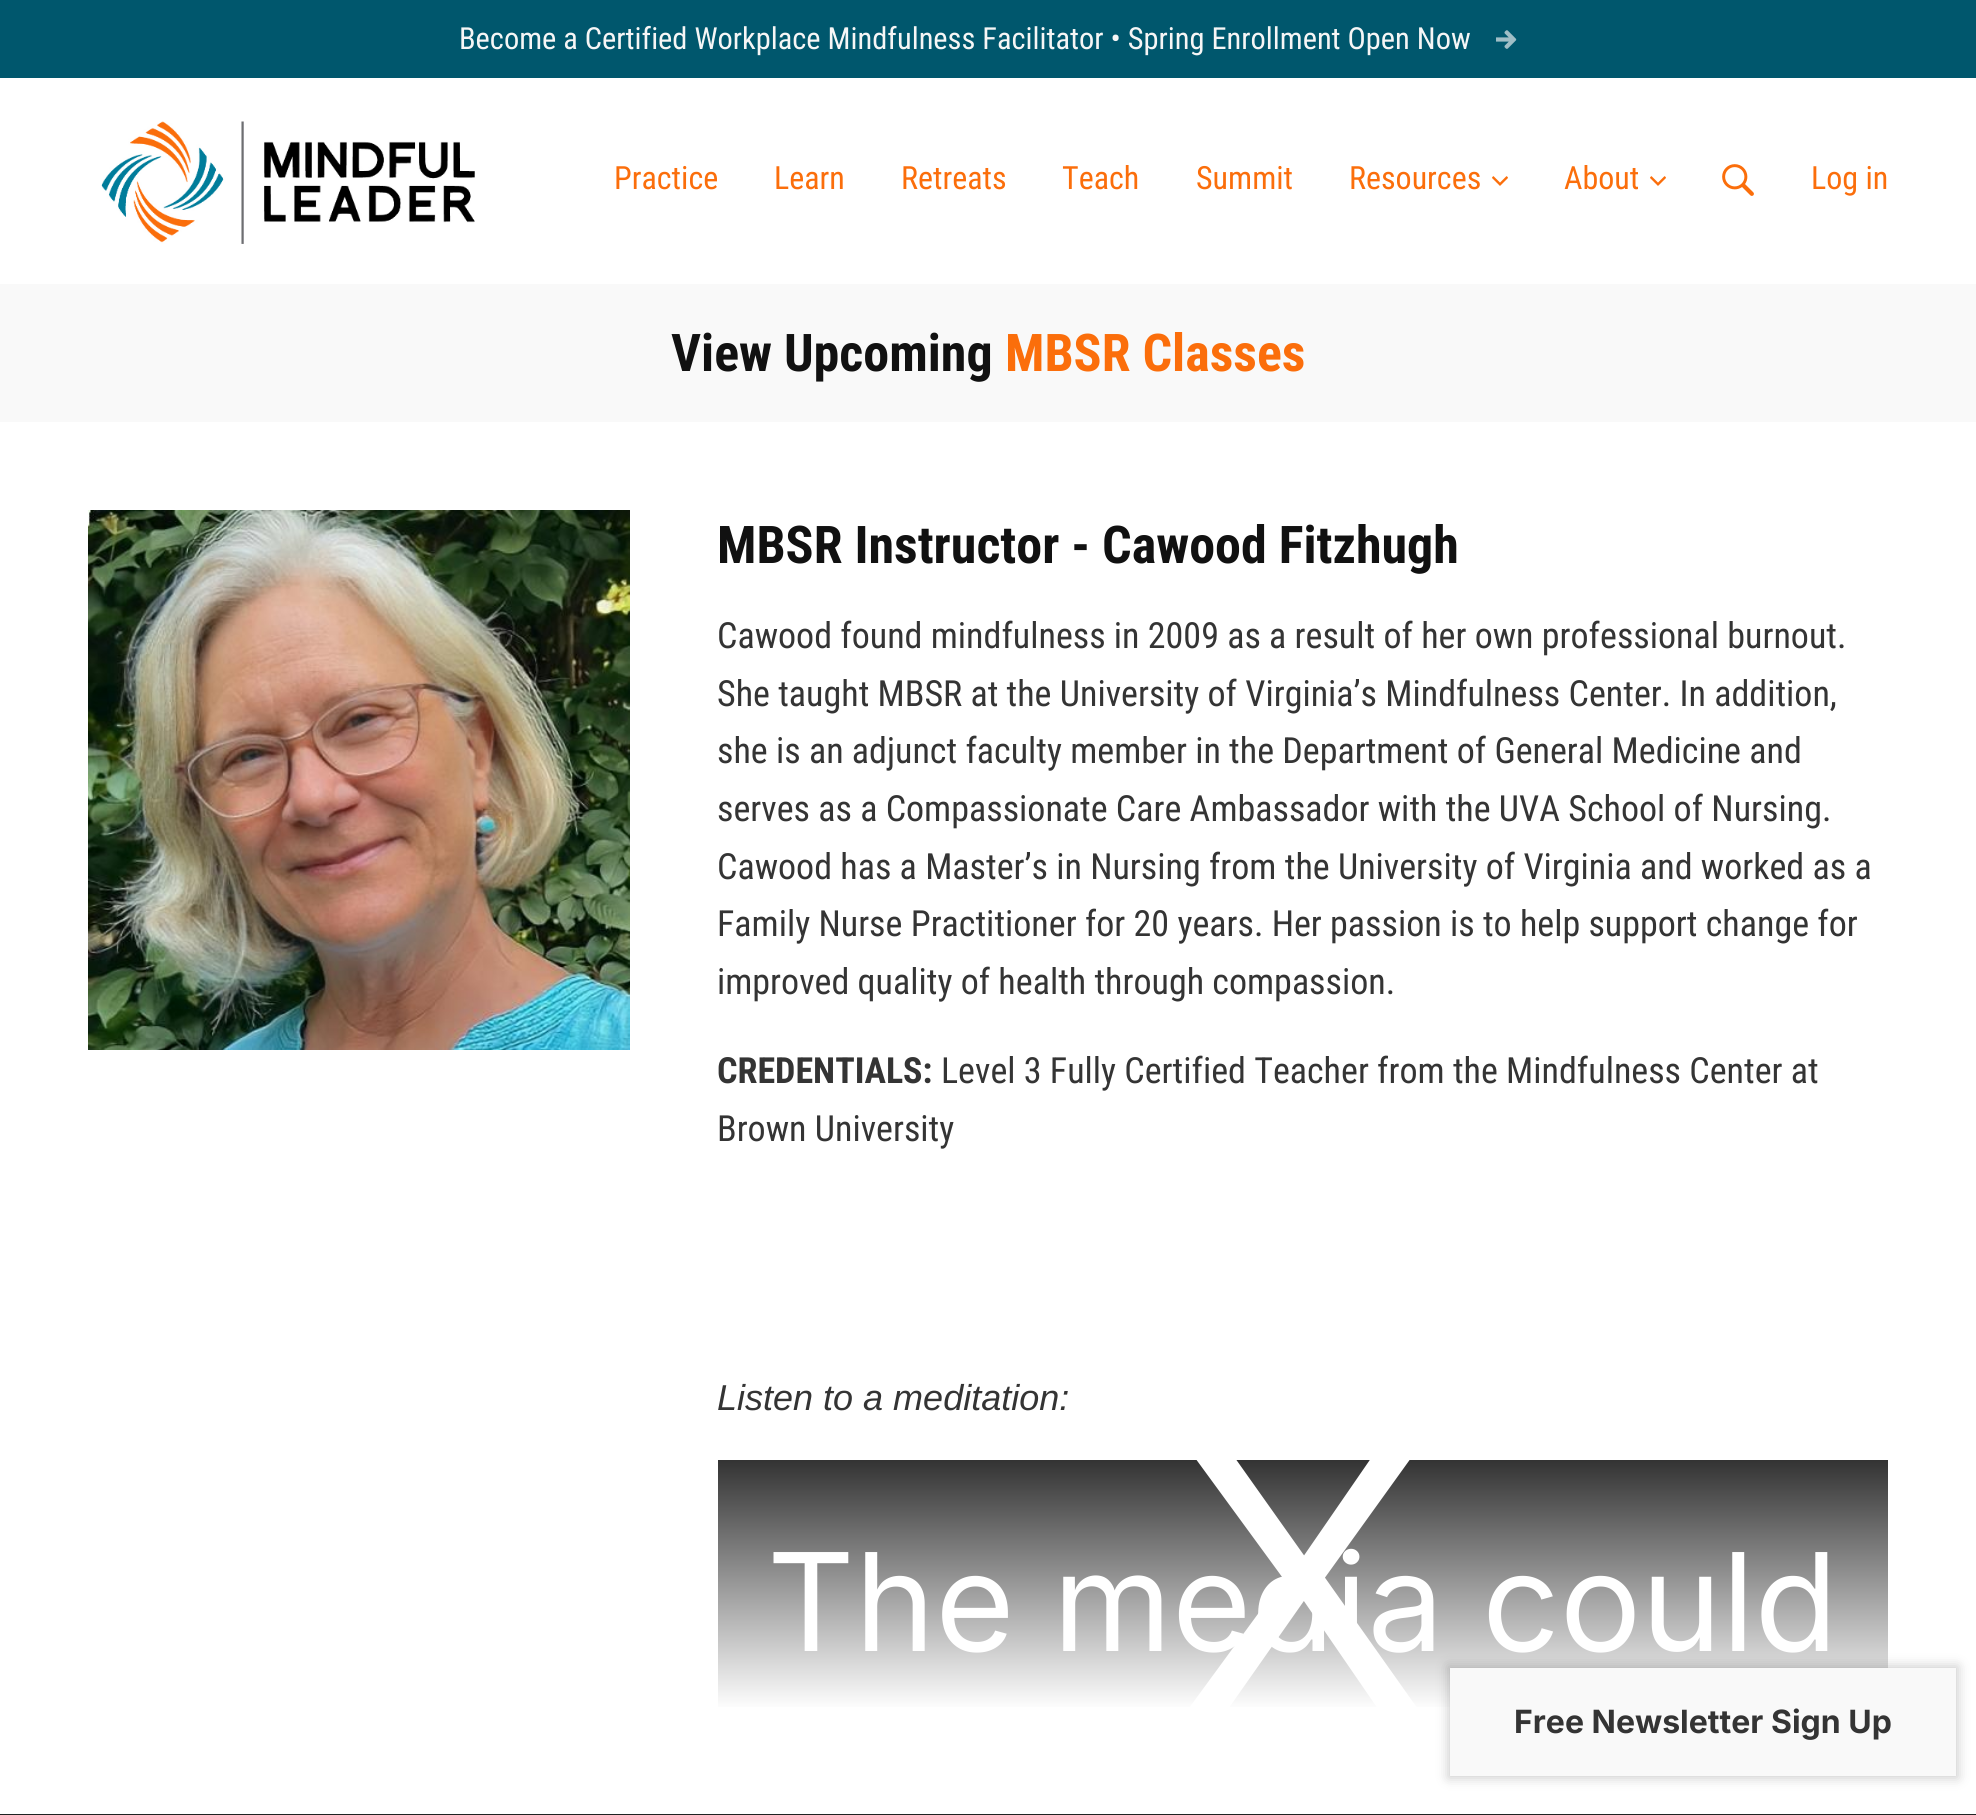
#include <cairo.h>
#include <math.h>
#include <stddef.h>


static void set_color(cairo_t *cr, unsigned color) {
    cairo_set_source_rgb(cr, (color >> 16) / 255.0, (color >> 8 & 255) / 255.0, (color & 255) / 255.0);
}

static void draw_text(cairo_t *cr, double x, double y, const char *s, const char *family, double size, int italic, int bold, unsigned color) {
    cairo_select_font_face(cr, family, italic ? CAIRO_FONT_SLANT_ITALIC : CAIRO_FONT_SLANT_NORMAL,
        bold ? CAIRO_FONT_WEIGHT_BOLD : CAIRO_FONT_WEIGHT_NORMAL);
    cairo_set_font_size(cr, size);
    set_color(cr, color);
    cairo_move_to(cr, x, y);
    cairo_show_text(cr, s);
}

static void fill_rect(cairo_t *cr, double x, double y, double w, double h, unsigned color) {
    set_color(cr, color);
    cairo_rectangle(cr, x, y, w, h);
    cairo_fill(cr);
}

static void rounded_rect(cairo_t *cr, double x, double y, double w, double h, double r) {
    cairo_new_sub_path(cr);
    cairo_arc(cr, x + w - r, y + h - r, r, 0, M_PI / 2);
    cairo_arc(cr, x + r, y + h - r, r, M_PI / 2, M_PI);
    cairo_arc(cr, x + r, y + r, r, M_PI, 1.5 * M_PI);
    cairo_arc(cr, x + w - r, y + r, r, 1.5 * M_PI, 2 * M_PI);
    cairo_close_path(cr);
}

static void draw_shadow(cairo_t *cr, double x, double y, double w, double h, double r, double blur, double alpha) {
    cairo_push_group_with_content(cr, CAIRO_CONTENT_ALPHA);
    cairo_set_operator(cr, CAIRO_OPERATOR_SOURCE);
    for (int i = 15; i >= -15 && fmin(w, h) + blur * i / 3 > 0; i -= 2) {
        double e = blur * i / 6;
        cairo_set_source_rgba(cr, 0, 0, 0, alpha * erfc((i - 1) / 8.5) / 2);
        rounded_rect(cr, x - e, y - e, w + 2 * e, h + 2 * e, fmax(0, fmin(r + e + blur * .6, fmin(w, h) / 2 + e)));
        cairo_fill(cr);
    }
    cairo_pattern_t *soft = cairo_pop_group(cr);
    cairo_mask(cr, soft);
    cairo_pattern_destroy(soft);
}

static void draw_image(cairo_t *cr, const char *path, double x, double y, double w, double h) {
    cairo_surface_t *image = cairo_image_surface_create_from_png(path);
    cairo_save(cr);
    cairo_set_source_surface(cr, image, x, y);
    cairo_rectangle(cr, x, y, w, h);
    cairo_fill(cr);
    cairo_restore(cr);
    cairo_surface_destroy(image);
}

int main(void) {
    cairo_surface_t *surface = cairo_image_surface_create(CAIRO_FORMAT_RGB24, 1976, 1815);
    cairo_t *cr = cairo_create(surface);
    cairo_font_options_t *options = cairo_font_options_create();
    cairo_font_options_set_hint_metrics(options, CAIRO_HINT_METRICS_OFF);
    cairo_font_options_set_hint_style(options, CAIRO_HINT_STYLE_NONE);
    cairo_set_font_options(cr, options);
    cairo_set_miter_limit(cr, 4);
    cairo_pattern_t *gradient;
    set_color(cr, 0xFFFFFF);
    cairo_paint(cr);
    fill_rect(cr, 0, 0, 1976, 78, 0x00576D);
    draw_text(cr, 459, 49, "Become a Certified Workplace Mindfulness Facilitator • Spring Enrollment Open Now", "Roboto Condensed", 30.4, 0, 0, 0xF6F6F6);
    draw_image(cr, "assets/img1.png", 1496, 30, 21, 19);
    draw_image(cr, "assets/img2.png", 101, 121, 374, 123);
    draw_text(cr, 614, 189, "Practice", "Roboto Condensed", 32, 0, 0, 0xFB6E0B);
    draw_text(cr, 774, 189, "Learn", "Roboto Condensed", 32, 0, 0, 0xFB6E0B);
    draw_text(cr, 901, 189, "Retreats", "Roboto Condensed", 32, 0, 0, 0xFB6E0B);
    draw_text(cr, 1062, 189, "Teach", "Roboto Condensed", 32, 0, 0, 0xFB6E0B);
    draw_text(cr, 1196, 189, "Summit", "Roboto Condensed", 32, 0, 0, 0xFB6E0B);
    draw_text(cr, 1349, 189, "Resources", "Roboto Condensed", 32, 0, 0, 0xFB6E0B);
    draw_image(cr, "assets/img3.png", 1492, 176, 16, 10);
    draw_text(cr, 1564, 189, "About", "Roboto Condensed", 32, 0, 0, 0xFB6E0B);
    draw_image(cr, "assets/img3.png", 1650, 176, 16, 10);
    draw_image(cr, "assets/img4.png", 1722, 164, 32, 32);
    draw_text(cr, 1811, 189, "Log in", "Roboto Condensed", 32, 0, 0, 0xFB6E0B);
    fill_rect(cr, 0, 284, 1976, 138, 0xF9F9F9);
    draw_text(cr, 671, 371, "View Upcoming", "Roboto Condensed", 52, 0, 1, 0x111111);
    draw_text(cr, 1005, 371, "MBSR Classes", "Roboto Condensed", 52, 0, 1, 0xFB6E0B);
    draw_image(cr, "assets/img5.png", 88, 510, 542, 540);
    draw_text(cr, 717, 563, "MBSR Instructor - Cawood Fitzhugh", "Roboto Condensed", 52, 0, 1, 0x111111);
    draw_text(cr, 717, 648, "Cawood found mindfulness in 2009 as a result of her own professional burnout.", "Roboto Condensed", 36, 0, 0, 0x343434);
    draw_text(cr, 717, 706, "She taught MBSR at the University of Virginia’s Mindfulness Center. In addition,", "Roboto Condensed", 36, 0, 0, 0x343434);
    draw_text(cr, 717, 763, "she is an adjunct faculty member in the Department of General Medicine and", "Roboto Condensed", 36, 0, 0, 0x343434);
    draw_text(cr, 717, 821, "serves as a Compassionate Care Ambassador with the UVA School of Nursing.", "Roboto Condensed", 36, 0, 0, 0x343434);
    draw_text(cr, 717, 879, "Cawood has a Master’s in Nursing from the University of Virginia and worked as a", "Roboto Condensed", 36, 0, 0, 0x343434);
    draw_text(cr, 717, 936, "Family Nurse Practitioner for 20 years. Her passion is to help support change for", "Roboto Condensed", 36, 0, 0, 0x343434);
    draw_text(cr, 717, 994, "improved quality of health through compassion.", "Roboto Condensed", 36, 0, 0, 0x343434);
    draw_text(cr, 717, 1083, "CREDENTIALS:", "Roboto Condensed", 36, 0, 1, 0x343434);
    draw_text(cr, 941, 1083, "Level 3 Fully Certified Teacher from the Mindfulness Center at", "Roboto Condensed", 36, 0, 0, 0x343434);
    draw_text(cr, 717, 1141, "Brown University", "Roboto Condensed", 36, 0, 0, 0x343434);
    draw_text(cr, 717, 1410, "Listen to a meditation:", "Liberation Sans", 36, 1, 0, 0x343434);
    gradient = cairo_pattern_create_linear(1303, 1460, 1303, 1710);
    cairo_pattern_add_color_stop_rgba(gradient, 0, 0.2, 0.2, 0.2, 1);
    cairo_pattern_add_color_stop_rgba(gradient, 1, 1, 1, 1, 1);
    cairo_set_source(cr, gradient);
    cairo_pattern_destroy(gradient);
    cairo_rectangle(cr, 718, 1460, 1170, 247);
    cairo_fill(cr);
    cairo_save(cr);
    cairo_rectangle(cr, 718, 1460, 1170, 250);
    cairo_clip(cr);
    draw_text(cr, 1173, 1718, "X", "Liberation Sans", 389, 0, 0, 0xFFFFFF);
    cairo_restore(cr);
    draw_text(cr, 767, 1651, "The media could", "Inter", 136, 0, 0, 0xFFFFFF);
    fill_rect(cr, 0, 1814, 1976, 1, 0x1E2322);
    set_color(cr, 0x000000);
    draw_shadow(cr, 1448, 1666, 510, 112, 0, 6, 0.2);
    fill_rect(cr, 1450, 1668, 506, 108, 0xF9F9F9);
    draw_text(cr, 1514, 1733, "Free Newsletter Sign Up", "Inter", 32, 0, 1, 0x343434);
    cairo_surface_write_to_png(surface, "output.png");
    cairo_font_options_destroy(options);
    cairo_destroy(cr);
    cairo_surface_destroy(surface);
    return 0;
}
